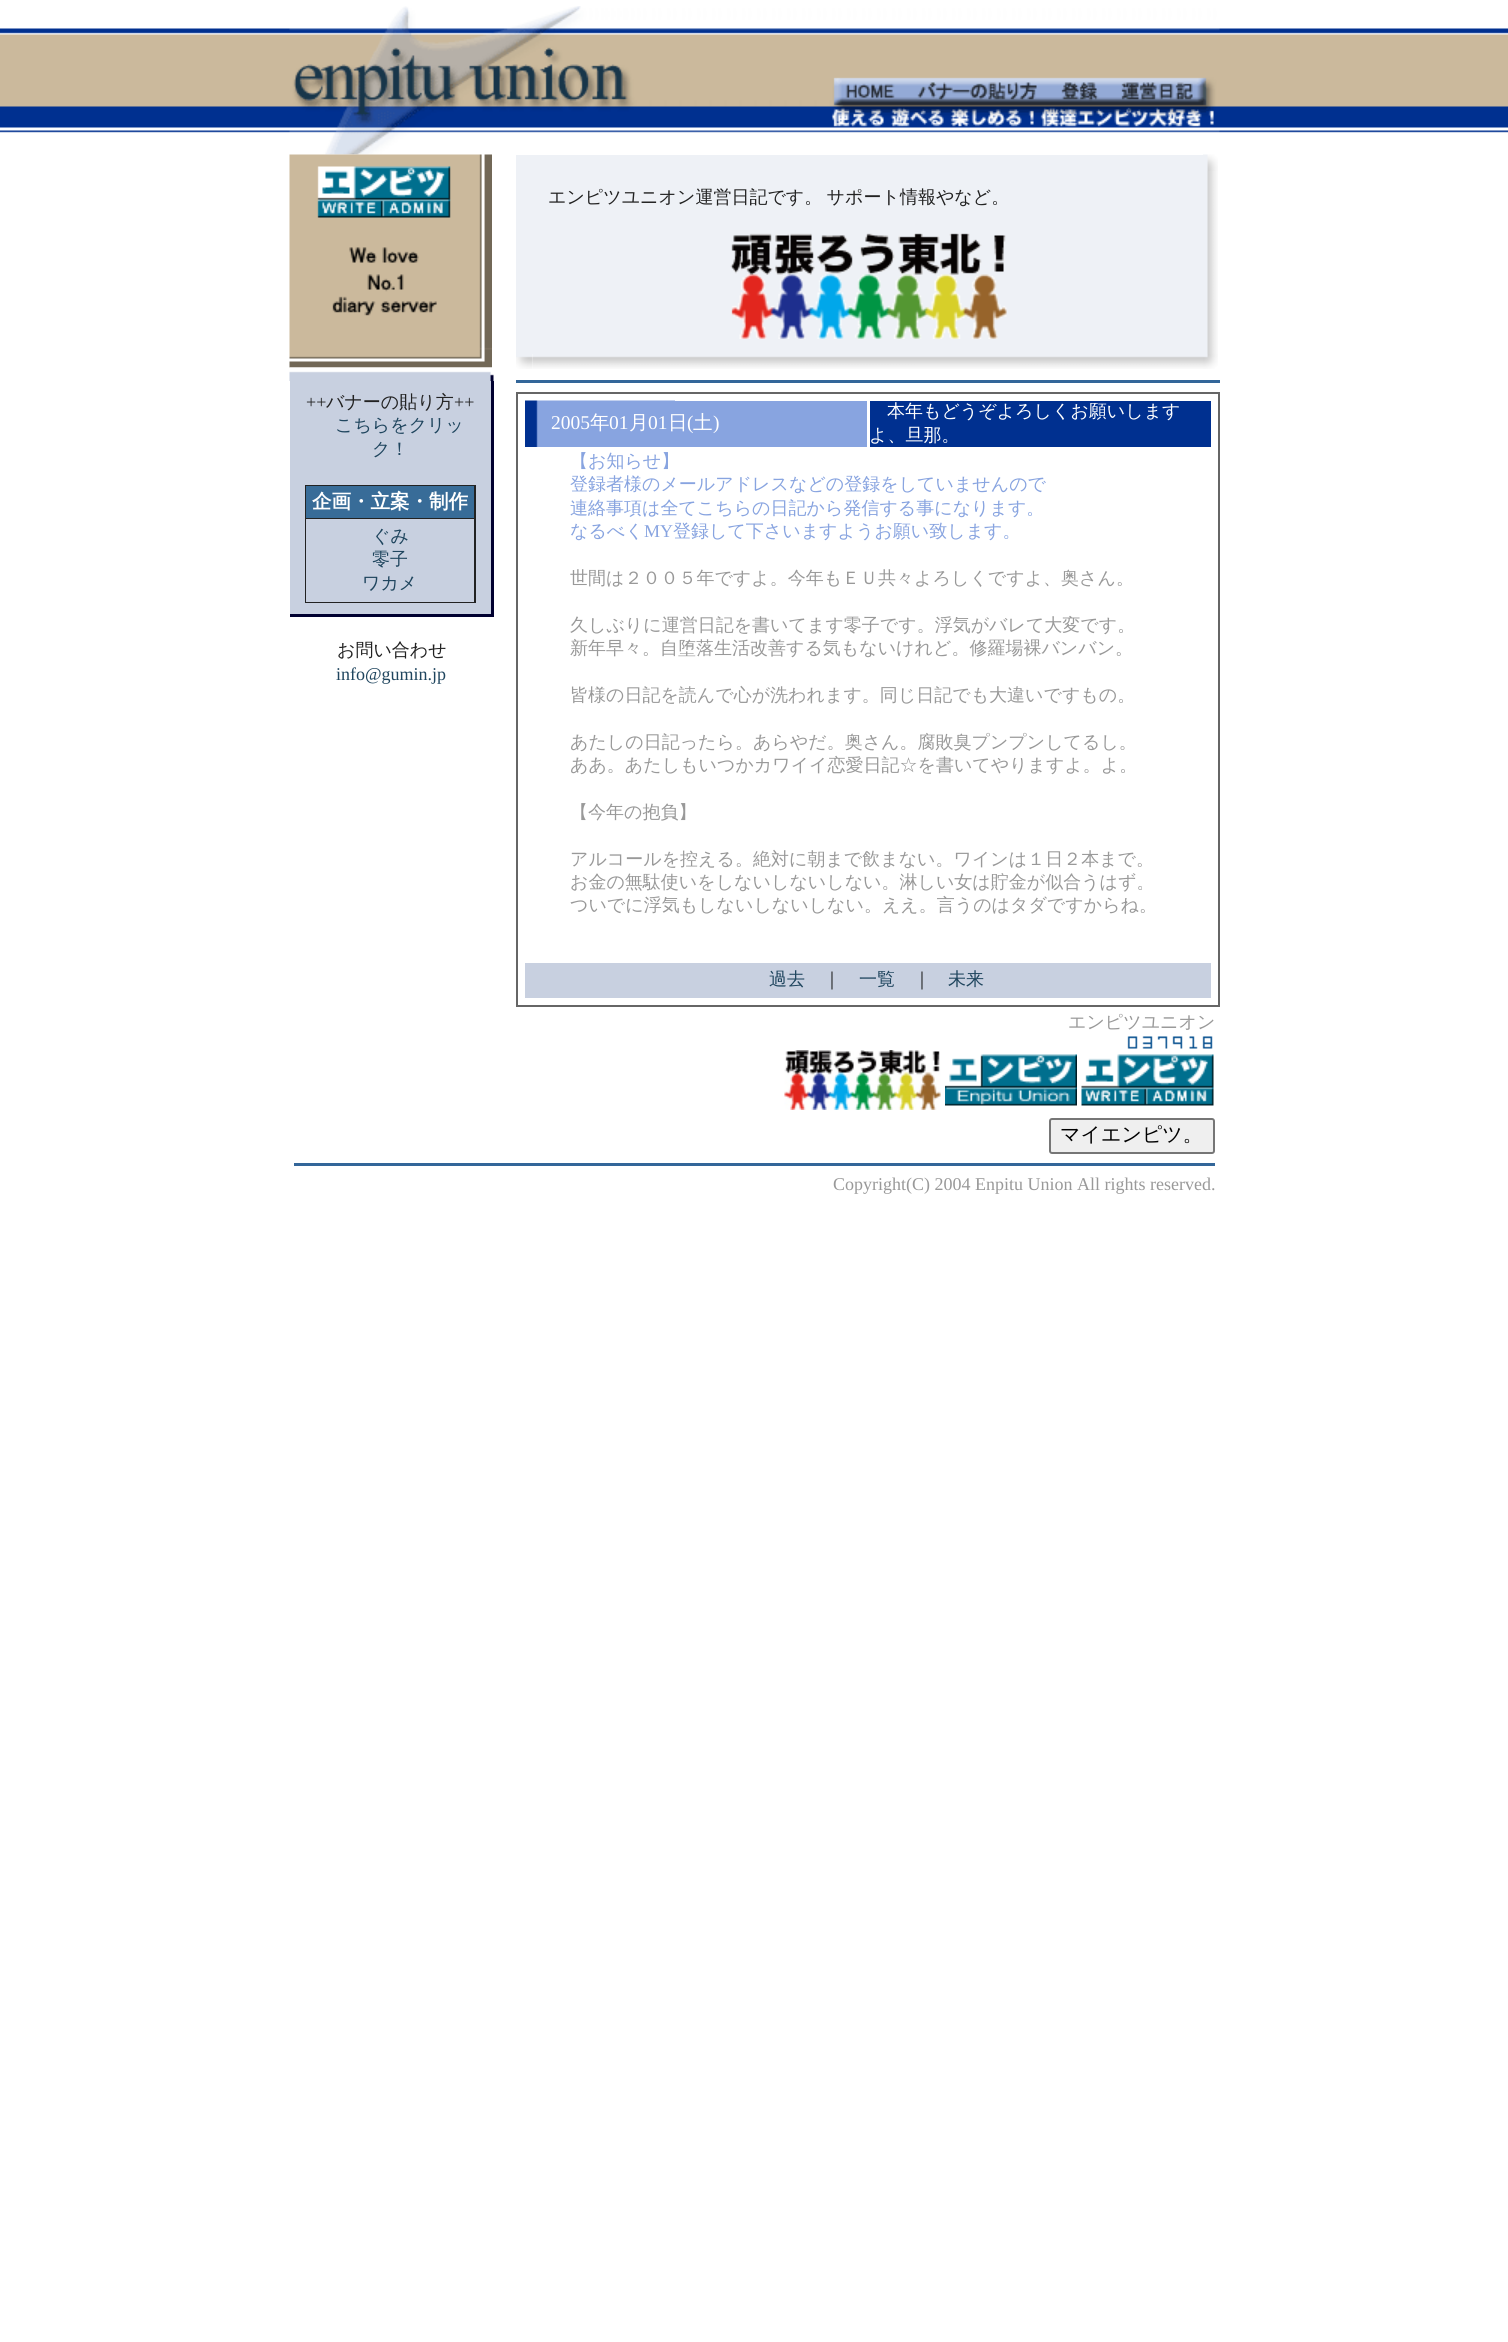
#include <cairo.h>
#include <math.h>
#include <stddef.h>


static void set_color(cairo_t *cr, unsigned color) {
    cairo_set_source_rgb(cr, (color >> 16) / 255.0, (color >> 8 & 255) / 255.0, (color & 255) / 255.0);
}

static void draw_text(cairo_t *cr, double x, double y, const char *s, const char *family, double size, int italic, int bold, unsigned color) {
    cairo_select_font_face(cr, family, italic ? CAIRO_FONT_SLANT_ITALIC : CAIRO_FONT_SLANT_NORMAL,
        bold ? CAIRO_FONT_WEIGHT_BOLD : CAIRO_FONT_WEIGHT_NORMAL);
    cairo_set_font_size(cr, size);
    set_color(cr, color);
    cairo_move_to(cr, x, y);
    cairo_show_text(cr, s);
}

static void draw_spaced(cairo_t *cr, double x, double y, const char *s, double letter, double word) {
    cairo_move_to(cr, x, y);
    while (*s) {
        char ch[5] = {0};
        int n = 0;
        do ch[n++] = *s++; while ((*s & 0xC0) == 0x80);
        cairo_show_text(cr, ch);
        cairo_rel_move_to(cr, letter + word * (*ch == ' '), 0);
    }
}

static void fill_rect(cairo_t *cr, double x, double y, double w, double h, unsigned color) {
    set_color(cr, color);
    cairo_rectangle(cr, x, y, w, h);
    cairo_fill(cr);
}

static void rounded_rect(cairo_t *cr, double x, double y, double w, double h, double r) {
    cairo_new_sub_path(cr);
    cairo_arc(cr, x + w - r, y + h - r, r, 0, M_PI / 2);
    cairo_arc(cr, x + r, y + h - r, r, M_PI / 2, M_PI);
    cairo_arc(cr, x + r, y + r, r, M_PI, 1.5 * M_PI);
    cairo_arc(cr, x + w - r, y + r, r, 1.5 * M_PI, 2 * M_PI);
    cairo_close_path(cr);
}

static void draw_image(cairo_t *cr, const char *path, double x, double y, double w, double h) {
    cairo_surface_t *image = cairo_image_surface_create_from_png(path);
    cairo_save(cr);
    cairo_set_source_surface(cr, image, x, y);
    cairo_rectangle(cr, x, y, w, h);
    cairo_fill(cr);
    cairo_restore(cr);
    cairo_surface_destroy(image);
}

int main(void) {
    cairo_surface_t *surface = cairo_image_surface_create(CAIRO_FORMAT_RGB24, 1508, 2342);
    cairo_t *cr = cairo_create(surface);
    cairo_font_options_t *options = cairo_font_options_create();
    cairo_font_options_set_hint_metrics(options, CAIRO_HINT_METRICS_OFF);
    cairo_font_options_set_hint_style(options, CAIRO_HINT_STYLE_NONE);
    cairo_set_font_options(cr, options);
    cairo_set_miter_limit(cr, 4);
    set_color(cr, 0xFFFFFF);
    cairo_paint(cr);
    draw_image(cr, "assets/img1.png", 0, 28, 1508, 105);
    draw_image(cr, "assets/img2.png", 289, 6, 931, 149);
    draw_image(cr, "assets/img3.png", 289, 154, 203, 214);
    draw_image(cr, "assets/img4.png", 289, 367, 205, 14);
    fill_rect(cr, 290, 381, 201, 233, 0xC8D0E0);
    fill_rect(cr, 491, 381, 3, 236, 0x000030);
    fill_rect(cr, 290, 614, 204, 3, 0x000030);
    draw_text(cr, 306, 408, "++", "Liberation Serif", 18, 0, 0, 0x222222);
    draw_text(cr, 326, 408, "バナーの貼り方", "WenQuanYi Zen Hei Medium", 18, 0, 0, 0x222222);
    draw_text(cr, 454, 408, "++", "Liberation Serif", 18, 0, 0, 0x222222);
    draw_text(cr, 335, 431, "こちらをクリッ", "WenQuanYi Zen Hei Medium", 18, 0, 0, 0x1F455E);
    draw_text(cr, 372, 455, "ク！", "WenQuanYi Zen Hei Medium", 18, 0, 0, 0x1F455E);
    fill_rect(cr, 305, 485, 171, 118, 0x222222);
    fill_rect(cr, 306, 486, 168, 32, 0x386C98);
    draw_text(cr, 312, 508, "企画・立案・制作", "WenQuanYi Zen Hei", 19.5, 0, 1, 0xFFFFFF);
    fill_rect(cr, 306, 519, 168, 83, 0xC8D0E0);
    draw_text(cr, 372, 542, "ぐみ", "WenQuanYi Zen Hei Medium", 18, 0, 0, 0x1F455E);
    draw_text(cr, 372, 565, "零子", "WenQuanYi Zen Hei Medium", 18, 0, 0, 0x1F455E);
    draw_text(cr, 362, 589, "ワカメ", "WenQuanYi Zen Hei Medium", 18, 0, 0, 0x1F455E);
    draw_text(cr, 337, 656, "お問い合わせ", "WenQuanYi Zen Hei Medium", 18, 0, 0, 0x222222);
    draw_text(cr, 336, 680, "info@gumin.jp", "Liberation Serif", 18, 0, 0, 0x1F455E);
    fill_rect(cr, 516, 155, 687, 16, 0xEEF1F6);
    draw_image(cr, "assets/img5.png", 1203, 154, 15, 17);
    fill_rect(cr, 516, 171, 687, 183, 0xEEF1F6);
    draw_image(cr, "assets/img6.png", 1203, 171, 15, 183);
    cairo_select_font_face(cr, "WenQuanYi Zen Hei Medium", CAIRO_FONT_SLANT_NORMAL, CAIRO_FONT_WEIGHT_NORMAL);
    set_color(cr, 0x222222);
    draw_spaced(cr, 548, 203, "エンピツユニオン運営日記です。 サポート情報やなど。", 0, -1);
    draw_image(cr, "assets/img7.png", 730, 233, 277, 106);
    draw_image(cr, "assets/img9.png", 532, 354, 671, 15);
    draw_image(cr, "assets/img8.png", 516, 354, 17, 15);
    draw_image(cr, "assets/img10.png", 1203, 354, 15, 15);
    fill_rect(cr, 516, 380, 704, 3, 0x336699);
    cairo_rectangle(cr, 517, 393, 702, 613);
    set_color(cr, 0x666666);
    cairo_stroke(cr);
    fill_rect(cr, 675, 401, 192, 46, 0x88A4E0);
    draw_image(cr, "assets/img11.png", 525, 400, 150, 47);
    draw_text(cr, 551, 429, "2005", "Liberation Serif", 19.5, 0, 0, 0xFFFFFF);
    draw_text(cr, 590, 429, "年", "WenQuanYi Zen Hei Medium", 19.5, 0, 0, 0xFFFFFF);
    draw_text(cr, 609, 429, "01", "Liberation Serif", 19.5, 0, 0, 0xFFFFFF);
    draw_text(cr, 629, 429, "月", "WenQuanYi Zen Hei Medium", 19.5, 0, 0, 0xFFFFFF);
    draw_text(cr, 648, 429, "01", "Liberation Serif", 19.5, 0, 0, 0xFFFFFF);
    draw_text(cr, 668, 429, "日", "WenQuanYi Zen Hei Medium", 19.5, 0, 0, 0xFFFFFF);
    draw_text(cr, 687, 429, "(", "Liberation Serif", 19.5, 0, 0, 0xFFFFFF);
    draw_text(cr, 693, 429, "土", "WenQuanYi Zen Hei Medium", 19.5, 0, 0, 0xFFFFFF);
    draw_text(cr, 713, 429, ")", "Liberation Serif", 19.5, 0, 0, 0xFFFFFF);
    fill_rect(cr, 870, 401, 341, 46, 0x003090);
    draw_text(cr, 887, 417, "本年もどうぞよろしくお願いします", "WenQuanYi Zen Hei Medium", 18, 0, 0, 0xFFFFFF);
    draw_text(cr, 869, 441, "よ、旦那。", "WenQuanYi Zen Hei Medium", 18, 0, 0, 0xFFFFFF);
    draw_text(cr, 570, 467, "【お知らせ】", "WenQuanYi Zen Hei Medium", 18, 0, 0, 0x88A4E0);
    draw_text(cr, 570, 490, "登録者様のメールアドレスなどの登録をしていませんので", "WenQuanYi Zen Hei Medium", 18, 0, 0, 0x88A4E0);
    draw_text(cr, 570, 514, "連絡事項は全てこちらの日記から発信する事になります。", "WenQuanYi Zen Hei Medium", 18, 0, 0, 0x88A4E0);
    draw_text(cr, 570, 537, "なるべく", "WenQuanYi Zen Hei Medium", 18, 0, 0, 0x88A4E0);
    draw_text(cr, 644, 537, "MY", "Liberation Serif", 18, 0, 0, 0x88A4E0);
    draw_text(cr, 673, 537, "登録して下さいますようお願い致します。", "WenQuanYi Zen Hei Medium", 18, 0, 0, 0x88A4E0);
    draw_text(cr, 570, 584, "世間は２００５年ですよ。今年もＥＵ共々よろしくですよ、奥さん。", "WenQuanYi Zen Hei Medium", 18, 0, 0, 0x999999);
    draw_text(cr, 570, 631, "久しぶりに運営日記を書いてます零子です。浮気がバレて大変です。", "WenQuanYi Zen Hei Medium", 18, 0, 0, 0x999999);
    draw_text(cr, 570, 654, "新年早々。自堕落生活改善する気もないけれど。修羅場裸バンバン。", "WenQuanYi Zen Hei Medium", 18, 0, 0, 0x999999);
    draw_text(cr, 570, 701, "皆様の日記を読んで心が洗われます。同じ日記でも大違いですもの。", "WenQuanYi Zen Hei Medium", 18, 0, 0, 0x999999);
    draw_text(cr, 570, 748, "あたしの日記ったら。あらやだ。奥さん。腐敗臭プンプンしてるし。", "WenQuanYi Zen Hei Medium", 18, 0, 0, 0x999999);
    draw_text(cr, 570, 771, "ああ。あたしもいつかカワイイ恋愛日記☆を書いてやりますよ。よ。", "WenQuanYi Zen Hei Medium", 18, 0, 0, 0x999999);
    draw_text(cr, 570, 818, "【今年の抱負】", "WenQuanYi Zen Hei Medium", 18, 0, 0, 0x999999);
    draw_text(cr, 570, 865, "アルコールを控える。絶対に朝まで飲まない。ワインは１日２本まで。", "WenQuanYi Zen Hei Medium", 18, 0, 0, 0x999999);
    draw_text(cr, 570, 888, "お金の無駄使いをしないしないしない。淋しい女は貯金が似合うはず。", "WenQuanYi Zen Hei Medium", 18, 0, 0, 0x999999);
    draw_text(cr, 570, 911, "ついでに浮気もしないしないしない。ええ。言うのはタダですからね。", "WenQuanYi Zen Hei Medium", 18, 0, 0, 0x999999);
    fill_rect(cr, 525, 963, 686, 35, 0xC8D0E0);
    draw_text(cr, 769, 985, "過去", "WenQuanYi Zen Hei Medium", 18, 0, 0, 0x1F455E);
    draw_text(cr, 823, 985, "｜", "WenQuanYi Zen Hei Medium", 18, 0, 0, 0x222222);
    draw_text(cr, 859, 985, "一覧", "WenQuanYi Zen Hei Medium", 18, 0, 0, 0x1F455E);
    draw_text(cr, 913, 985, "｜", "WenQuanYi Zen Hei Medium", 18, 0, 0, 0x222222);
    draw_text(cr, 948, 985, "未来", "WenQuanYi Zen Hei Medium", 18, 0, 0, 0x1F455E);
    draw_text(cr, 1068, 1028, "エンピツユニオン", "WenQuanYi Zen Hei Medium", 18, 0, 0, 0x999999);
    draw_image(cr, "assets/img12.png", 1127, 1036, 86, 13);
    draw_image(cr, "assets/img13.png", 784, 1050, 157, 60);
    draw_image(cr, "assets/img14.png", 945, 1054, 132, 52);
    draw_image(cr, "assets/img15.png", 1081, 1054, 133, 52);
    set_color(cr, 0xEFEFEF);
    rounded_rect(cr, 1050, 1119, 164, 34, 2);
    cairo_fill_preserve(cr);
    set_color(cr, 0x767676);
    cairo_stroke(cr);
    draw_text(cr, 1060, 1141, "マイエンピツ。", "WenQuanYi Zen Hei Medium", 20, 0, 0, 0x000000);
    fill_rect(cr, 294, 1163, 921, 3, 0x336699);
    draw_text(cr, 833, 1190, "Copyright(C) 2004 Enpitu Union All rights reserved.", "Liberation Serif", 18, 0, 0, 0x999999);
    cairo_surface_write_to_png(surface, "output.png");
    cairo_font_options_destroy(options);
    cairo_destroy(cr);
    cairo_surface_destroy(surface);
    return 0;
}
